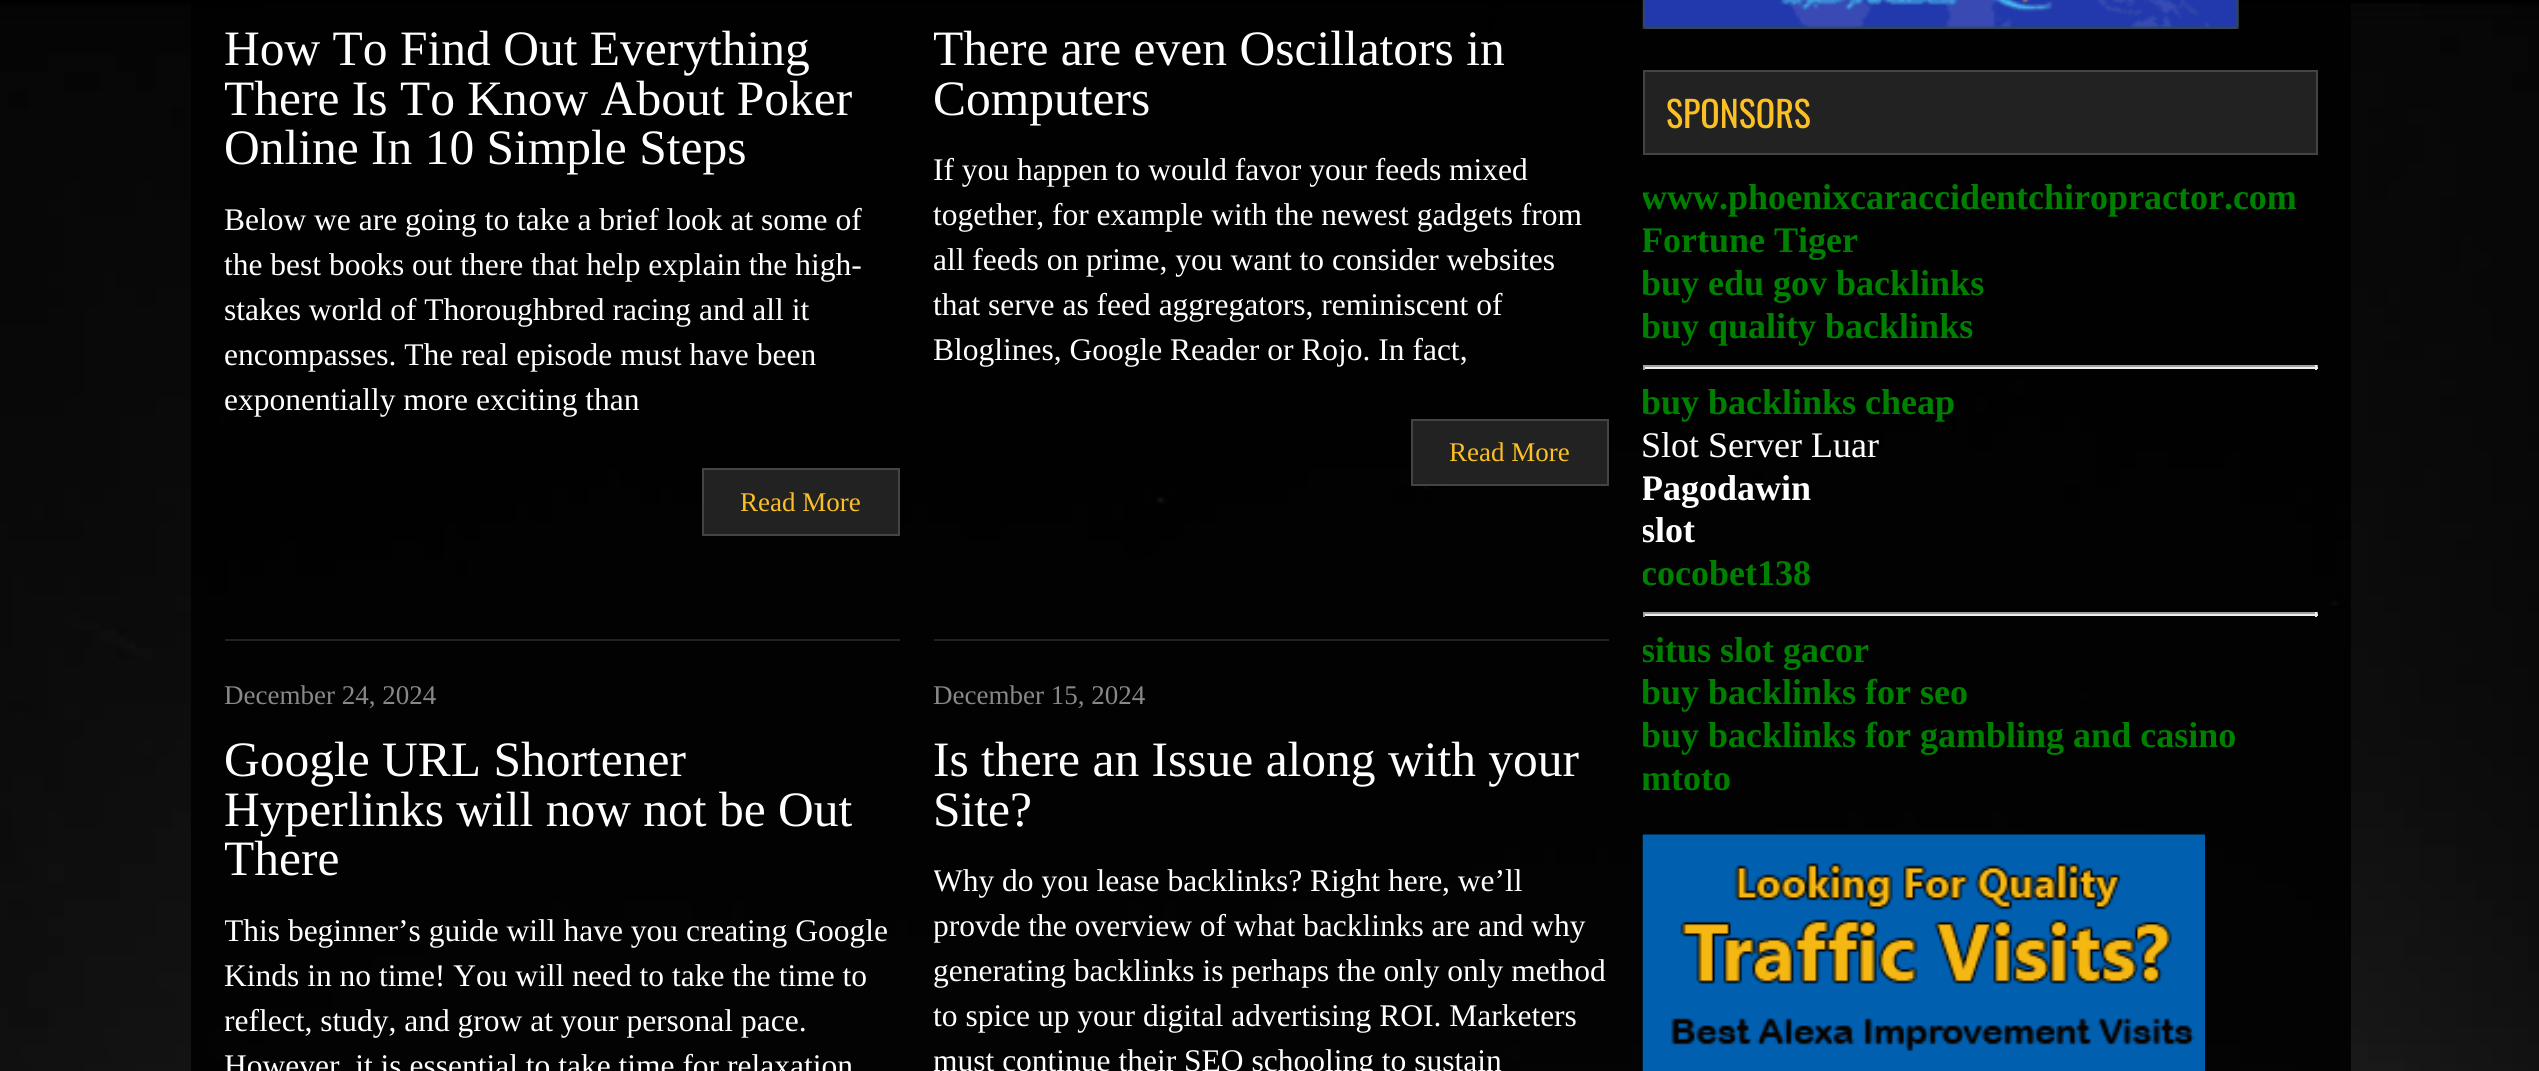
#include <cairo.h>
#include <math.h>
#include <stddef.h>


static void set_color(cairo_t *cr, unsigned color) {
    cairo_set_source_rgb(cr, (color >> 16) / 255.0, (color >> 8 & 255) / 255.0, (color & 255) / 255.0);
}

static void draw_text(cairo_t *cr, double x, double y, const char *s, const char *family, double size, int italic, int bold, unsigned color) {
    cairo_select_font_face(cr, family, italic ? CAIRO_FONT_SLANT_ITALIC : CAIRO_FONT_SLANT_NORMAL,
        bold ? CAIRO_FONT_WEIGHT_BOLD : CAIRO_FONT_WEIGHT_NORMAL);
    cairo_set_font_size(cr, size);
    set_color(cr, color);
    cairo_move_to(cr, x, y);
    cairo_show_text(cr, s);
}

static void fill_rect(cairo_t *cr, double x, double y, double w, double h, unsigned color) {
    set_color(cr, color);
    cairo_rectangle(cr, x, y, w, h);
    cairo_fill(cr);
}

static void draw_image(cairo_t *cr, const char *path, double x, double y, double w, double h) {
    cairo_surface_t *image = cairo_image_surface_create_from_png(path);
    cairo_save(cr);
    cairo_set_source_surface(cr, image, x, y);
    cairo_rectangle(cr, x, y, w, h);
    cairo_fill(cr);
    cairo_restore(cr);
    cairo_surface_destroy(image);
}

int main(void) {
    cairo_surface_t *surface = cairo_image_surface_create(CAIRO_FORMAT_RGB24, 2539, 1071);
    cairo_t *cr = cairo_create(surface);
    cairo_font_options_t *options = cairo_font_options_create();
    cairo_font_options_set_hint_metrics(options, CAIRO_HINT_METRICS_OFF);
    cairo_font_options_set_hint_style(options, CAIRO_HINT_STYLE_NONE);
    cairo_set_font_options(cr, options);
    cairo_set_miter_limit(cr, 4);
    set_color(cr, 0x000000);
    cairo_paint(cr);
    draw_image(cr, "assets/img1.png", 0, 3, 2539, 1068);
    cairo_set_source_rgba(cr, 0, 0, 0, 0.87);
    cairo_rectangle(cr, 191, 3, 2160, 1068);
    cairo_fill(cr);
    fill_rect(cr, 225, 639, 675, 2, 0x222222);
    draw_text(cr, 224, 65, "How To Find Out Everything", "Liberation Serif", 49.5, 0, 0, 0xFFFFFF);
    cairo_save(cr);
    cairo_rectangle(cr, 225, 0, 675, 639);
    cairo_clip(cr);
    draw_text(cr, 224, 115, "There Is To Know About Poker", "Liberation Serif", 49.5, 0, 0, 0xFFFFFF);
    cairo_restore(cr);
    draw_text(cr, 224, 164, "Online In 10 Simple Steps", "Liberation Serif", 49.5, 0, 0, 0xFFFFFF);
    draw_text(cr, 224, 230, "Below we are going to take a brief look at some of", "Liberation Serif", 31.5, 0, 0, 0xFFFFFF);
    draw_text(cr, 224, 275, "the best books out there that help explain the high-", "Liberation Serif", 31.5, 0, 0, 0xFFFFFF);
    draw_text(cr, 224, 320, "stakes world of Thoroughbred racing and all it", "Liberation Serif", 31.5, 0, 0, 0xFFFFFF);
    draw_text(cr, 224, 365, "encompasses. The real episode must have been", "Liberation Serif", 31.5, 0, 0, 0xFFFFFF);
    draw_text(cr, 224, 410, "exponentially more exciting than", "Liberation Serif", 31.5, 0, 0, 0xFFFFFF);
    set_color(cr, 0x222222);
    cairo_rectangle(cr, 703, 469, 196, 66);
    cairo_fill_preserve(cr);
    set_color(cr, 0x444444);
    cairo_stroke(cr);
    draw_text(cr, 740, 511, "Read More", "Liberation Serif", 27, 0, 0, 0xFAC025);
    fill_rect(cr, 934, 639, 675, 2, 0x222222);
    cairo_save(cr);
    cairo_rectangle(cr, 934, 0, 675, 639);
    cairo_clip(cr);
    draw_text(cr, 933, 65, "There are even Oscillators in", "Liberation Serif", 49.5, 0, 0, 0xFFFFFF);
    cairo_restore(cr);
    draw_text(cr, 933, 115, "Computers", "Liberation Serif", 49.5, 0, 0, 0xFFFFFF);
    draw_text(cr, 933, 180, "If you happen to would favor your feeds mixed", "Liberation Serif", 31.5, 0, 0, 0xFFFFFF);
    draw_text(cr, 933, 225, "together, for example with the newest gadgets from", "Liberation Serif", 31.5, 0, 0, 0xFFFFFF);
    cairo_save(cr);
    cairo_rectangle(cr, 934, 0, 675, 639);
    cairo_clip(cr);
    draw_text(cr, 933, 270, "all feeds on prime, you want to consider websites", "Liberation Serif", 31.5, 0, 0, 0xFFFFFF);
    cairo_restore(cr);
    draw_text(cr, 933, 315, "that serve as feed aggregators, reminiscent of", "Liberation Serif", 31.5, 0, 0, 0xFFFFFF);
    cairo_save(cr);
    cairo_rectangle(cr, 934, 0, 675, 639);
    cairo_clip(cr);
    draw_text(cr, 933, 360, "Bloglines, Google Reader or Rojo. In fact,", "Liberation Serif", 31.5, 0, 0, 0xFFFFFF);
    cairo_restore(cr);
    set_color(cr, 0x222222);
    cairo_rectangle(cr, 1412, 420, 196, 65);
    cairo_fill_preserve(cr);
    set_color(cr, 0x444444);
    cairo_stroke(cr);
    draw_text(cr, 1449, 461, "Read More", "Liberation Serif", 27, 0, 0, 0xFAC025);
    draw_text(cr, 224, 704, "December 24, 2024", "Liberation Serif", 27, 0, 0, 0x888888);
    draw_text(cr, 224, 776, "Google URL Shortener", "Liberation Serif", 49.5, 0, 0, 0xFFFFFF);
    draw_text(cr, 224, 826, "Hyperlinks will now not be Out", "Liberation Serif", 49.5, 0, 0, 0xFFFFFF);
    cairo_save(cr);
    cairo_rectangle(cr, 225, 675, 675, 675);
    cairo_clip(cr);
    draw_text(cr, 224, 875, "There", "Liberation Serif", 49.5, 0, 0, 0xFFFFFF);
    draw_text(cr, 224, 941, "This beginner’s guide will have you creating Google", "Liberation Serif", 31.5, 0, 0, 0xFFFFFF);
    cairo_restore(cr);
    draw_text(cr, 224, 986, "Kinds in no time! You will need to take the time to", "Liberation Serif", 31.5, 0, 0, 0xFFFFFF);
    cairo_save(cr);
    cairo_rectangle(cr, 225, 675, 675, 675);
    cairo_clip(cr);
    draw_text(cr, 224, 1031, "reflect, study, and grow at your personal pace.", "Liberation Serif", 31.5, 0, 0, 0xFFFFFF);
    cairo_restore(cr);
    draw_text(cr, 224, 1076, "However, it is essential to take time for relaxation", "Liberation Serif", 31.5, 0, 0, 0xFFFFFF);
    draw_text(cr, 933, 704, "December 15, 2024", "Liberation Serif", 27, 0, 0, 0x888888);
    draw_text(cr, 933, 776, "Is there an Issue along with your", "Liberation Serif", 49.5, 0, 0, 0xFFFFFF);
    draw_text(cr, 933, 826, "Site?", "Liberation Serif", 49.5, 0, 0, 0xFFFFFF);
    cairo_save(cr);
    cairo_rectangle(cr, 934, 675, 675, 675);
    cairo_clip(cr);
    draw_text(cr, 933, 891, "Why do you lease backlinks? Right here, we’ll", "Liberation Serif", 31.5, 0, 0, 0xFFFFFF);
    draw_text(cr, 933, 936, "provde the overview of what backlinks are and why", "Liberation Serif", 31.5, 0, 0, 0xFFFFFF);
    cairo_restore(cr);
    draw_text(cr, 933, 981, "generating backlinks is perhaps the only only method", "Liberation Serif", 31.5, 0, 0, 0xFFFFFF);
    draw_text(cr, 933, 1026, "to spice up your digital advertising ROI. Marketers", "Liberation Serif", 31.5, 0, 0, 0xFFFFFF);
    cairo_save(cr);
    cairo_rectangle(cr, 934, 675, 675, 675);
    cairo_clip(cr);
    draw_text(cr, 933, 1071, "must continue their SEO schooling to sustain", "Liberation Serif", 31.5, 0, 0, 0xFFFFFF);
    cairo_restore(cr);
    draw_image(cr, "assets/img2.png", 1642, 0, 597, 29);
    set_color(cr, 0x222222);
    cairo_rectangle(cr, 1644, 71, 673, 83);
    cairo_fill_preserve(cr);
    set_color(cr, 0x444444);
    cairo_stroke(cr);
    draw_text(cr, 1666, 128, "SPONSORS", "Oswald", 36, 0, 0, 0xFAC025);
    cairo_save(cr);
    cairo_rectangle(cr, 1643, 0, 675, 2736);
    cairo_clip(cr);
    draw_text(cr, 1641, 209, "www.phoenixcaraccidentchiropractor.com", "Liberation Serif", 36, 0, 1, 0x008000);
    draw_text(cr, 1641, 252, "Fortune Tiger", "Liberation Serif", 36, 0, 1, 0x008000);
    draw_text(cr, 1641, 295, "buy edu gov backlinks", "Liberation Serif", 36, 0, 1, 0x008000);
    draw_text(cr, 1641, 338, "buy quality backlinks", "Liberation Serif", 36, 0, 1, 0x008000);
    cairo_restore(cr);
    fill_rect(cr, 1643, 365, 675, 2, 0x9F9F9F);
    fill_rect(cr, 2315, 365, 2, 5, 0xEEEEEE);
    fill_rect(cr, 1643, 367, 675, 2, 0xEEEEEE);
    fill_rect(cr, 1643, 365, 2, 5, 0x9F9F9F);
    cairo_save(cr);
    cairo_rectangle(cr, 1643, 0, 675, 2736);
    cairo_clip(cr);
    draw_text(cr, 1641, 414, "buy backlinks cheap", "Liberation Serif", 36, 0, 1, 0x008000);
    cairo_restore(cr);
    draw_text(cr, 1641, 457, "Slot Server Luar", "Liberation Serif", 36, 0, 0, 0xFFFFFF);
    cairo_save(cr);
    cairo_rectangle(cr, 1643, 0, 675, 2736);
    cairo_clip(cr);
    draw_text(cr, 1641, 500, "Pagodawin", "Liberation Serif", 36, 0, 1, 0xFFFFFF);
    draw_text(cr, 1641, 542, "slot", "Liberation Serif", 36, 0, 1, 0xFFFFFF);
    draw_text(cr, 1641, 585, "cocobet138", "Liberation Serif", 36, 0, 1, 0x008000);
    cairo_restore(cr);
    fill_rect(cr, 1643, 612, 675, 2, 0x9F9F9F);
    fill_rect(cr, 2315, 612, 2, 5, 0xEEEEEE);
    fill_rect(cr, 1643, 614, 675, 2, 0xEEEEEE);
    fill_rect(cr, 1643, 612, 2, 5, 0x9F9F9F);
    cairo_save(cr);
    cairo_rectangle(cr, 1643, 0, 675, 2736);
    cairo_clip(cr);
    draw_text(cr, 1641, 662, "situs slot gacor", "Liberation Serif", 36, 0, 1, 0x008000);
    draw_text(cr, 1641, 704, "buy backlinks for seo", "Liberation Serif", 36, 0, 1, 0x008000);
    draw_text(cr, 1641, 747, "buy backlinks for gambling and casino", "Liberation Serif", 36, 0, 1, 0x008000);
    draw_text(cr, 1641, 790, "mtoto", "Liberation Serif", 36, 0, 1, 0x008000);
    cairo_restore(cr);
    draw_image(cr, "assets/img3.png", 1642, 834, 563, 237);
    cairo_surface_write_to_png(surface, "output.png");
    cairo_font_options_destroy(options);
    cairo_destroy(cr);
    cairo_surface_destroy(surface);
    return 0;
}
